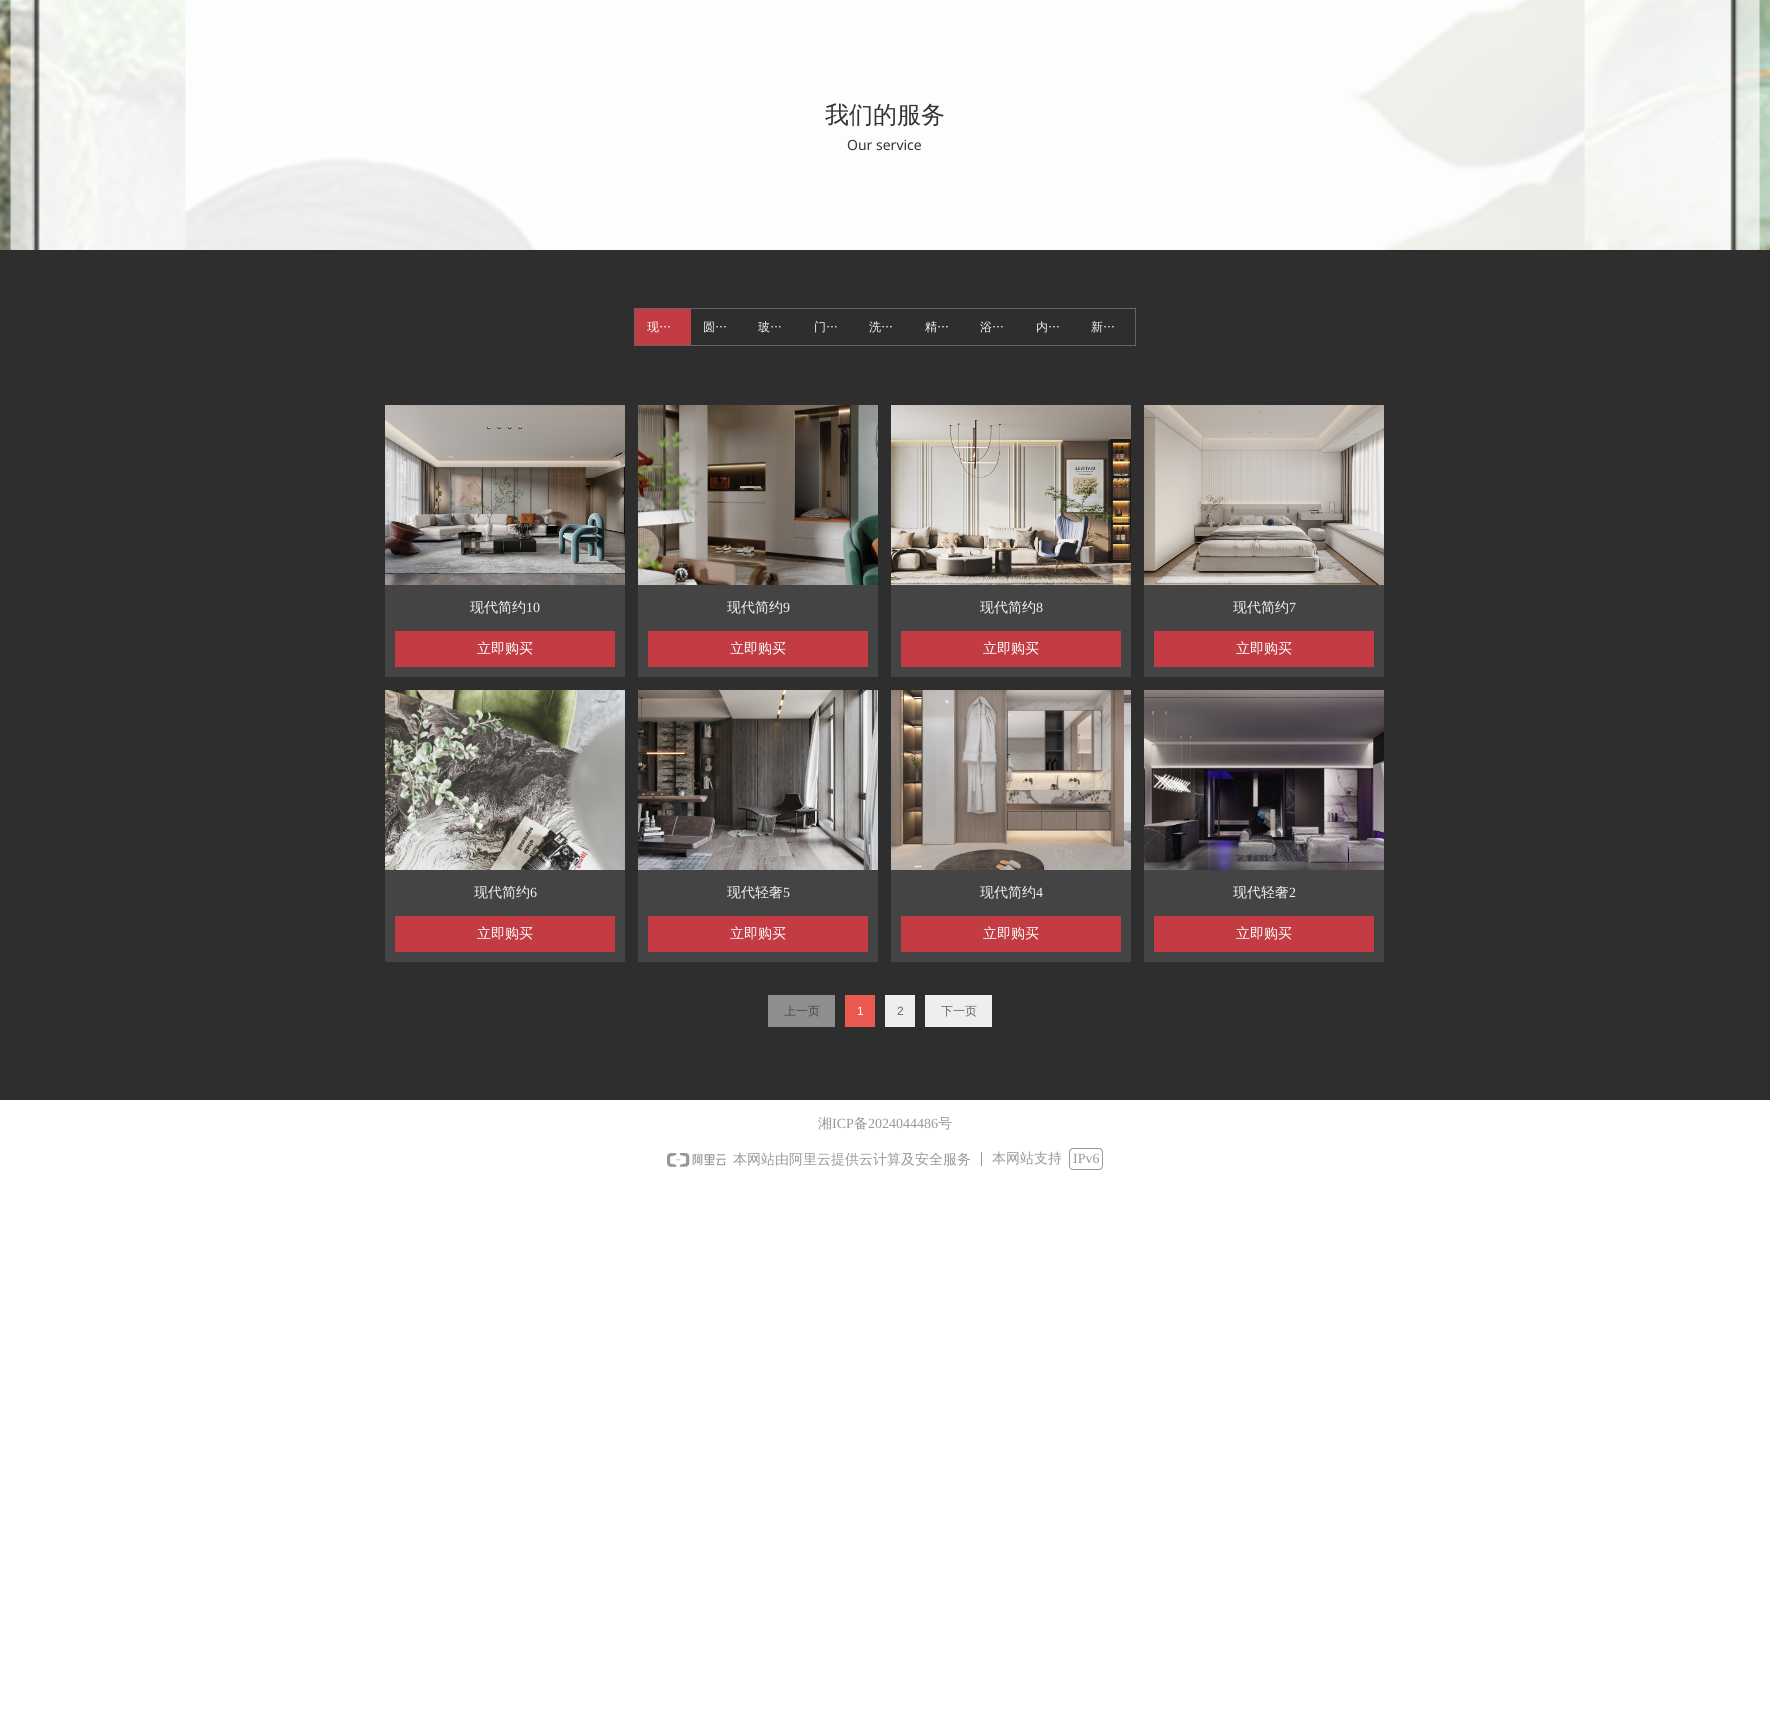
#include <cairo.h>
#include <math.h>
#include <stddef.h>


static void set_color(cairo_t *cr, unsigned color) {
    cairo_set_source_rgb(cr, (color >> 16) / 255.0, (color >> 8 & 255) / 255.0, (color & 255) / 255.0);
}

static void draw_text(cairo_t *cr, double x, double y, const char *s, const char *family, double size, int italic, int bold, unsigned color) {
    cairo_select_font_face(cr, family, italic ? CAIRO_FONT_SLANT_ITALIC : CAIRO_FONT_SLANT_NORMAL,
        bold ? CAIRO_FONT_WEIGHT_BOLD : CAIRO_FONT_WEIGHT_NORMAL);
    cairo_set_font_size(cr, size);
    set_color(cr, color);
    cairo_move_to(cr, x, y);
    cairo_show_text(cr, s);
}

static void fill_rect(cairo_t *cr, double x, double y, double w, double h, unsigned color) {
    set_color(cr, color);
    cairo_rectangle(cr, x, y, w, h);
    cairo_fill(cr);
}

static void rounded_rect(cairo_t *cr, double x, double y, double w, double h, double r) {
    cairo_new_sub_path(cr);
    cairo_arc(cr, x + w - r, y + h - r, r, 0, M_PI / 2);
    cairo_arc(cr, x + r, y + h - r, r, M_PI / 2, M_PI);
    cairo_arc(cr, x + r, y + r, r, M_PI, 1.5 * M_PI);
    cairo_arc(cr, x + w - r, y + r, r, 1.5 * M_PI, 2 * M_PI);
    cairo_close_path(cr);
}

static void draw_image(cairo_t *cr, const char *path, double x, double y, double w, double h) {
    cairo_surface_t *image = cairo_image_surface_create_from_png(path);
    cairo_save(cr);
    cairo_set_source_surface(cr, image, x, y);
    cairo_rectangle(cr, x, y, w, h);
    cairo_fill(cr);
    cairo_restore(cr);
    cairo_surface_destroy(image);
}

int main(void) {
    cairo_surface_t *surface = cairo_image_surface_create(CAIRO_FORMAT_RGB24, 1770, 1722);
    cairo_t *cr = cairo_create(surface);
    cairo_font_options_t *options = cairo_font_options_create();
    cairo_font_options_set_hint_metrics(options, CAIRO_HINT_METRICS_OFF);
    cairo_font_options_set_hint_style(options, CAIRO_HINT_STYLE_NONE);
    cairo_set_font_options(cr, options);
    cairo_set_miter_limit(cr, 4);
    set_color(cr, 0xFFFFFF);
    cairo_paint(cr);
    fill_rect(cr, 0, 250, 1770, 850, 0x2E2E2E);
    draw_image(cr, "assets/img1.png", 0, 0, 1770, 250);
    draw_text(cr, 825, 123, "我们的服务", "WenQuanYi Zen Hei Medium", 24, 0, 0, 0x333333);
    draw_text(cr, 847, 150, "Our service", "Noto Sans", 14, 0, 0, 0x333333);
    cairo_rectangle(cr, 634.5, 308.5, 501, 37);
    set_color(cr, 0x666666);
    cairo_set_line_width(cr, 1);
    cairo_stroke(cr);
    fill_rect(cr, 635, 309, 56, 36, 0xC33C43);
    draw_text(cr, 647, 331, "现…", "WenQuanYi Zen Hei Medium", 12, 0, 0, 0xFFFFFF);
    draw_text(cr, 703, 331, "圆…", "WenQuanYi Zen Hei Medium", 12, 0, 0, 0xF3F3F3);
    draw_text(cr, 758, 331, "玻…", "WenQuanYi Zen Hei Medium", 12, 0, 0, 0xF3F3F3);
    draw_text(cr, 814, 331, "门…", "WenQuanYi Zen Hei Medium", 12, 0, 0, 0xF3F3F3);
    draw_text(cr, 869, 331, "洗…", "WenQuanYi Zen Hei Medium", 12, 0, 0, 0xF3F3F3);
    draw_text(cr, 925, 331, "精…", "WenQuanYi Zen Hei Medium", 12, 0, 0, 0xF3F3F3);
    draw_text(cr, 980, 331, "浴…", "WenQuanYi Zen Hei Medium", 12, 0, 0, 0xF3F3F3);
    draw_text(cr, 1036, 331, "内…", "WenQuanYi Zen Hei Medium", 12, 0, 0, 0xF3F3F3);
    draw_text(cr, 1091, 331, "新…", "WenQuanYi Zen Hei Medium", 12, 0, 0, 0xF3F3F3);
    fill_rect(cr, 385, 585, 240, 92, 0x444444);
    draw_image(cr, "assets/img2.png", 385, 405, 240, 180);
    draw_text(cr, 470, 612, "现代简约", "WenQuanYi Zen Hei Medium", 14, 0, 0, 0xF3F3F3);
    draw_text(cr, 526, 612, "10", "Liberation Serif", 14, 0, 0, 0xF3F3F3);
    fill_rect(cr, 395, 631, 220, 36, 0xC33C43);
    draw_text(cr, 477, 653, "立即购买", "WenQuanYi Zen Hei Medium", 14, 0, 0, 0xFFFFFF);
    fill_rect(cr, 638, 585, 240, 92, 0x444444);
    draw_image(cr, "assets/img3.png", 638, 405, 240, 180);
    draw_text(cr, 727, 612, "现代简约", "WenQuanYi Zen Hei Medium", 14, 0, 0, 0xF3F3F3);
    draw_text(cr, 783, 612, "9", "Liberation Serif", 14, 0, 0, 0xF3F3F3);
    fill_rect(cr, 648, 631, 220, 36, 0xC33C43);
    draw_text(cr, 730, 653, "立即购买", "WenQuanYi Zen Hei Medium", 14, 0, 0, 0xFFFFFF);
    fill_rect(cr, 891, 585, 240, 92, 0x444444);
    draw_image(cr, "assets/img4.png", 891, 405, 240, 180);
    draw_text(cr, 980, 612, "现代简约", "WenQuanYi Zen Hei Medium", 14, 0, 0, 0xF3F3F3);
    draw_text(cr, 1036, 612, "8", "Liberation Serif", 14, 0, 0, 0xF3F3F3);
    fill_rect(cr, 901, 631, 220, 36, 0xC33C43);
    draw_text(cr, 983, 653, "立即购买", "WenQuanYi Zen Hei Medium", 14, 0, 0, 0xFFFFFF);
    fill_rect(cr, 1144, 585, 240, 92, 0x444444);
    draw_image(cr, "assets/img5.png", 1144, 405, 240, 180);
    draw_text(cr, 1233, 612, "现代简约", "WenQuanYi Zen Hei Medium", 14, 0, 0, 0xF3F3F3);
    draw_text(cr, 1289, 612, "7", "Liberation Serif", 14, 0, 0, 0xF3F3F3);
    fill_rect(cr, 1154, 631, 220, 36, 0xC33C43);
    draw_text(cr, 1236, 653, "立即购买", "WenQuanYi Zen Hei Medium", 14, 0, 0, 0xFFFFFF);
    fill_rect(cr, 385, 870, 240, 92, 0x444444);
    draw_image(cr, "assets/img6.png", 385, 690, 240, 180);
    draw_text(cr, 474, 897, "现代简约", "WenQuanYi Zen Hei Medium", 14, 0, 0, 0xF3F3F3);
    draw_text(cr, 530, 897, "6", "Liberation Serif", 14, 0, 0, 0xF3F3F3);
    fill_rect(cr, 395, 916, 220, 36, 0xC33C43);
    draw_text(cr, 477, 938, "立即购买", "WenQuanYi Zen Hei Medium", 14, 0, 0, 0xFFFFFF);
    fill_rect(cr, 638, 870, 240, 92, 0x444444);
    draw_image(cr, "assets/img7.png", 638, 690, 240, 180);
    draw_text(cr, 727, 897, "现代轻奢", "WenQuanYi Zen Hei Medium", 14, 0, 0, 0xF3F3F3);
    draw_text(cr, 783, 897, "5", "Liberation Serif", 14, 0, 0, 0xF3F3F3);
    fill_rect(cr, 648, 916, 220, 36, 0xC33C43);
    draw_text(cr, 730, 938, "立即购买", "WenQuanYi Zen Hei Medium", 14, 0, 0, 0xFFFFFF);
    fill_rect(cr, 891, 870, 240, 92, 0x444444);
    draw_image(cr, "assets/img8.png", 891, 690, 240, 180);
    draw_text(cr, 980, 897, "现代简约", "WenQuanYi Zen Hei Medium", 14, 0, 0, 0xF3F3F3);
    draw_text(cr, 1036, 897, "4", "Liberation Serif", 14, 0, 0, 0xF3F3F3);
    fill_rect(cr, 901, 916, 220, 36, 0xC33C43);
    draw_text(cr, 983, 938, "立即购买", "WenQuanYi Zen Hei Medium", 14, 0, 0, 0xFFFFFF);
    fill_rect(cr, 1144, 870, 240, 92, 0x444444);
    draw_image(cr, "assets/img9.png", 1144, 690, 240, 180);
    draw_text(cr, 1233, 897, "现代轻奢", "WenQuanYi Zen Hei Medium", 14, 0, 0, 0xF3F3F3);
    draw_text(cr, 1289, 897, "2", "Liberation Serif", 14, 0, 0, 0xF3F3F3);
    fill_rect(cr, 1154, 916, 220, 36, 0xC33C43);
    draw_text(cr, 1236, 938, "立即购买", "WenQuanYi Zen Hei Medium", 14, 0, 0, 0xFFFFFF);
    fill_rect(cr, 768, 995, 67, 32, 0x8E8E8E);
    draw_text(cr, 784, 1015, "上一页", "WenQuanYi Zen Hei Medium", 12, 0, 0, 0x4A4A4A);
    fill_rect(cr, 845, 995, 30, 32, 0xEA594F);
    draw_text(cr, 857, 1015, "1", "Liberation Sans", 12, 0, 0, 0xFFFFFF);
    fill_rect(cr, 885, 995, 30, 32, 0xEEEEEE);
    draw_text(cr, 897, 1015, "2", "Liberation Sans", 12, 0, 0, 0x666666);
    fill_rect(cr, 925, 995, 67, 32, 0xEEEEEE);
    draw_text(cr, 941, 1015, "下一页", "WenQuanYi Zen Hei Medium", 12, 0, 0, 0x666666);
    draw_text(cr, 818, 1128, "湘", "WenQuanYi Zen Hei Medium", 14, 0, 0, 0x989898);
    draw_text(cr, 832, 1128, "ICP", "Liberation Serif", 14, 0, 0, 0x989898);
    draw_text(cr, 854, 1128, "备", "WenQuanYi Zen Hei Medium", 14, 0, 0, 0x989898);
    draw_text(cr, 868, 1128, "2024044486", "Liberation Serif", 14, 0, 0, 0x989898);
    draw_text(cr, 938, 1128, "号", "WenQuanYi Zen Hei Medium", 14, 0, 0, 0x989898);
    draw_image(cr, "assets/img10.png", 667, 1153, 59, 14);
    draw_text(cr, 733, 1164, "本网站由阿里云提供云计算及安全服务", "WenQuanYi Zen Hei Medium", 14, 0, 0, 0x989898);
    fill_rect(cr, 981, 1152, 1, 14, 0x989898);
    draw_text(cr, 992, 1163, "本网站支持", "WenQuanYi Zen Hei Medium", 14, 0, 0, 0x989898);
    rounded_rect(cr, 1069.5, 1148.5, 33, 21, 3.5);
    cairo_stroke(cr);
    draw_text(cr, 1073, 1163, "IPv6", "Liberation Serif", 14, 0, 0, 0x989898);
    cairo_surface_write_to_png(surface, "output.png");
    cairo_font_options_destroy(options);
    cairo_destroy(cr);
    cairo_surface_destroy(surface);
    return 0;
}
